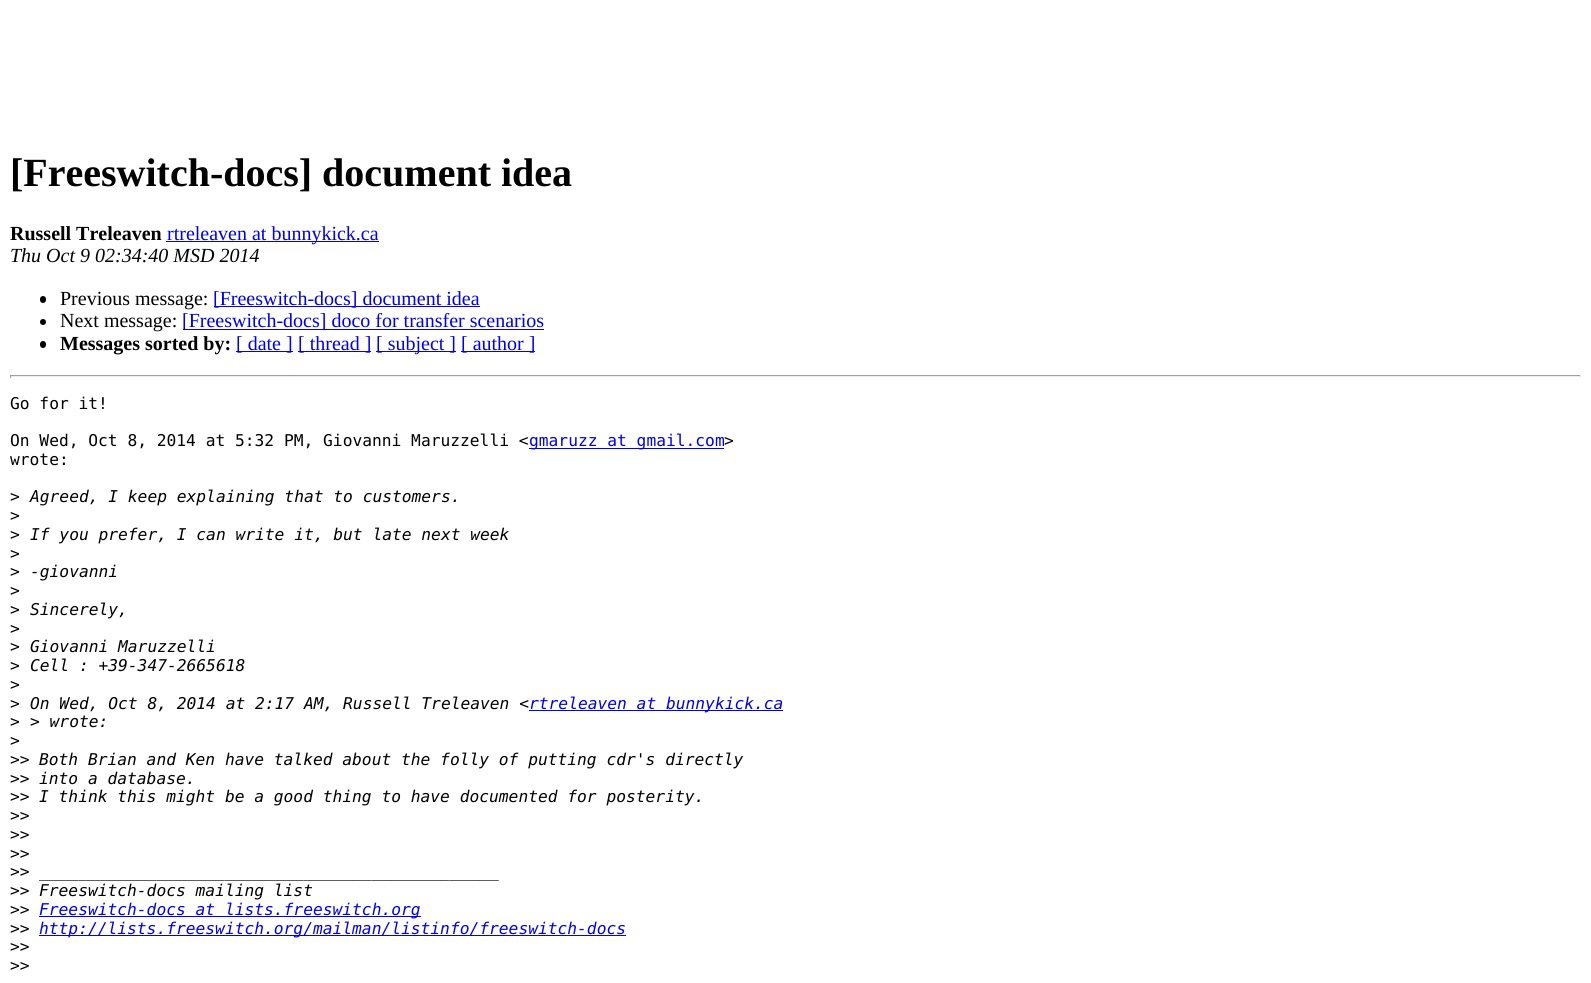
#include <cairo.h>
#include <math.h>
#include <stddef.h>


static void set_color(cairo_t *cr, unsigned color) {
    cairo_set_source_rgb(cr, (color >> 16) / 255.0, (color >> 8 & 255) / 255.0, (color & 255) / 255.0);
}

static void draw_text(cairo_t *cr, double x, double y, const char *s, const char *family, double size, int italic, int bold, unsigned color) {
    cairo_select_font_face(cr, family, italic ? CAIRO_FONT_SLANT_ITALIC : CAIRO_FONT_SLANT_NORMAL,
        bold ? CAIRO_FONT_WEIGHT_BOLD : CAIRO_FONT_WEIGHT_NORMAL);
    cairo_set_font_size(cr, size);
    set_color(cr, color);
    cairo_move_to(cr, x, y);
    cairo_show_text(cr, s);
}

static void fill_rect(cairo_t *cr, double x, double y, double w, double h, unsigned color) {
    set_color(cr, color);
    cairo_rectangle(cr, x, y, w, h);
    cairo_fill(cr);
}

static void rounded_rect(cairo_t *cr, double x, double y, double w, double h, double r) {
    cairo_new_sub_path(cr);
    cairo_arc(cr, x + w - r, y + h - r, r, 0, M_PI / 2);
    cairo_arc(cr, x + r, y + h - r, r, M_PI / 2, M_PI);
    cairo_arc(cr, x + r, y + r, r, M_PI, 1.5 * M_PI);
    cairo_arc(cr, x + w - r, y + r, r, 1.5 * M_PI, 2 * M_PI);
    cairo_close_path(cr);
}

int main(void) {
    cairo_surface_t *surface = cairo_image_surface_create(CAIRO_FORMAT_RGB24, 1591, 983);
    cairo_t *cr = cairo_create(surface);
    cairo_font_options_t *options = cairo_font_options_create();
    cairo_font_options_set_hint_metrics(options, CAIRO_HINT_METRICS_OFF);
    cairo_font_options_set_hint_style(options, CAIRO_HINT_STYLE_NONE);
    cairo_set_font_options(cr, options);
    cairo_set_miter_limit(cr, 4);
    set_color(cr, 0xFFFFFF);
    cairo_paint(cr);
    draw_text(cr, 10, 186, "[Freeswitch-docs] document idea", "Liberation Serif", 40, 0, 1, 0x000000);
    draw_text(cr, 10, 240, "Russell Treleaven", "Liberation Serif", 20, 0, 1, 0x000000);
    fill_rect(cr, 166, 241, 213, 1, 0x0000EE);
    draw_text(cr, 167, 240, "rtreleaven at bunnykick.ca", "Liberation Serif", 20, 0, 0, 0x0000EE);
    draw_text(cr, 10, 262, "Thu Oct 9 02:34:40 MSD 2014", "Liberation Serif", 20, 1, 0, 0x000000);
    rounded_rect(cr, 40, 296, 6, 7, 3);
    cairo_fill(cr);
    draw_text(cr, 60, 305, "Previous message:", "Liberation Serif", 20, 0, 0, 0x000000);
    fill_rect(cr, 214, 306, 266, 1, 0x0000EE);
    draw_text(cr, 213, 305, "[Freeswitch-docs] document idea", "Liberation Serif", 20, 0, 0, 0x0000EE);
    set_color(cr, 0x000000);
    cairo_new_path(cr);
    cairo_arc(cr, 43, 322, 3, 0, 2 * M_PI);
    cairo_fill(cr);
    draw_text(cr, 60, 327, "Next message:", "Liberation Serif", 20, 0, 0, 0x000000);
    fill_rect(cr, 183, 329, 361, 1, 0x0000EE);
    draw_text(cr, 182, 327, "[Freeswitch-docs] doco for transfer scenarios", "Liberation Serif", 20, 0, 0, 0x0000EE);
    set_color(cr, 0x000000);
    rounded_rect(cr, 40, 341, 6, 7, 3);
    cairo_fill(cr);
    draw_text(cr, 60, 350, "Messages sorted by:", "Liberation Serif", 20, 0, 1, 0x000000);
    fill_rect(cr, 236, 351, 57, 1, 0x0000EE);
    draw_text(cr, 236, 350, "[ date ]", "Liberation Serif", 20, 0, 0, 0x0000EE);
    fill_rect(cr, 298, 351, 73, 1, 0x0000EE);
    draw_text(cr, 298, 350, "[ thread ]", "Liberation Serif", 20, 0, 0, 0x0000EE);
    fill_rect(cr, 376, 351, 80, 1, 0x0000EE);
    draw_text(cr, 376, 350, "[ subject ]", "Liberation Serif", 20, 0, 0, 0x0000EE);
    fill_rect(cr, 461, 351, 74, 1, 0x0000EE);
    draw_text(cr, 461, 350, "[ author ]", "Liberation Serif", 20, 0, 0, 0x0000EE);
    fill_rect(cr, 10, 375, 1571, 1, 0x9F9F9F);
    fill_rect(cr, 1580, 375, 1, 3, 0xEEEEEE);
    fill_rect(cr, 10, 376, 1571, 1, 0xEEEEEE);
    fill_rect(cr, 10, 375, 1, 3, 0x9F9F9F);
    draw_text(cr, 10, 409, "Go for it!", "DejaVu Sans Mono", 16.25, 0, 0, 0x000000);
    draw_text(cr, 10, 446, "On Wed, Oct 8, 2014 at 5:32 PM, Giovanni Maruzzelli <", "DejaVu Sans Mono", 16.25, 0, 0, 0x000000);
    fill_rect(cr, 529, 448, 195, 1, 0x0000EE);
    draw_text(cr, 529, 446, "gmaruzz at gmail.com", "DejaVu Sans Mono", 16.25, 0, 0, 0x0000EE);
    draw_text(cr, 724, 446, ">", "DejaVu Sans Mono", 16.25, 0, 0, 0x000000);
    draw_text(cr, 10, 465, "wrote:", "DejaVu Sans Mono", 16.25, 0, 0, 0x000000);
    draw_text(cr, 10, 502, ">", "DejaVu Sans Mono", 16.25, 0, 0, 0x000000);
    draw_text(cr, 30, 502, "Agreed, I keep explaining that to customers.", "DejaVu Sans Mono", 16.25, 1, 0, 0x000000);
    draw_text(cr, 10, 521, ">", "DejaVu Sans Mono", 16.25, 0, 0, 0x000000);
    draw_text(cr, 10, 540, ">", "DejaVu Sans Mono", 16.25, 0, 0, 0x000000);
    draw_text(cr, 30, 540, "If you prefer, I can write it, but late next week", "DejaVu Sans Mono", 16.25, 1, 0, 0x000000);
    draw_text(cr, 10, 559, ">", "DejaVu Sans Mono", 16.25, 0, 0, 0x000000);
    draw_text(cr, 10, 577, ">", "DejaVu Sans Mono", 16.25, 0, 0, 0x000000);
    draw_text(cr, 30, 577, "-giovanni", "DejaVu Sans Mono", 16.25, 1, 0, 0x000000);
    draw_text(cr, 10, 596, ">", "DejaVu Sans Mono", 16.25, 0, 0, 0x000000);
    draw_text(cr, 10, 615, ">", "DejaVu Sans Mono", 16.25, 0, 0, 0x000000);
    draw_text(cr, 30, 615, "Sincerely,", "DejaVu Sans Mono", 16.25, 1, 0, 0x000000);
    draw_text(cr, 10, 634, ">", "DejaVu Sans Mono", 16.25, 0, 0, 0x000000);
    draw_text(cr, 10, 652, ">", "DejaVu Sans Mono", 16.25, 0, 0, 0x000000);
    draw_text(cr, 30, 652, "Giovanni Maruzzelli", "DejaVu Sans Mono", 16.25, 1, 0, 0x000000);
    draw_text(cr, 10, 671, ">", "DejaVu Sans Mono", 16.25, 0, 0, 0x000000);
    draw_text(cr, 30, 671, "Cell : +39-347-2665618", "DejaVu Sans Mono", 16.25, 1, 0, 0x000000);
    draw_text(cr, 10, 690, ">", "DejaVu Sans Mono", 16.25, 0, 0, 0x000000);
    draw_text(cr, 10, 709, ">", "DejaVu Sans Mono", 16.25, 0, 0, 0x000000);
    draw_text(cr, 30, 709, "On Wed, Oct 8, 2014 at 2:17 AM, Russell Treleaven <", "DejaVu Sans Mono", 16.25, 1, 0, 0x000000);
    fill_rect(cr, 529, 710, 254, 1, 0x0000EE);
    draw_text(cr, 529, 709, "rtreleaven at bunnykick.ca", "DejaVu Sans Mono", 16.25, 1, 0, 0x0000EE);
    draw_text(cr, 10, 727, ">", "DejaVu Sans Mono", 16.25, 0, 0, 0x000000);
    draw_text(cr, 30, 727, "> wrote:", "DejaVu Sans Mono", 16.25, 1, 0, 0x000000);
    draw_text(cr, 10, 746, ">", "DejaVu Sans Mono", 16.25, 0, 0, 0x000000);
    draw_text(cr, 10, 765, ">>", "DejaVu Sans Mono", 16.25, 0, 0, 0x000000);
    draw_text(cr, 39, 765, "Both Brian and Ken have talked about the folly of putting cdr's directly", "DejaVu Sans Mono", 16.25, 1, 0, 0x000000);
    draw_text(cr, 10, 784, ">>", "DejaVu Sans Mono", 16.25, 0, 0, 0x000000);
    draw_text(cr, 39, 784, "into a database.", "DejaVu Sans Mono", 16.25, 1, 0, 0x000000);
    draw_text(cr, 10, 802, ">>", "DejaVu Sans Mono", 16.25, 0, 0, 0x000000);
    draw_text(cr, 39, 802, "I think this might be a good thing to have documented for posterity.", "DejaVu Sans Mono", 16.25, 1, 0, 0x000000);
    draw_text(cr, 10, 821, ">>", "DejaVu Sans Mono", 16.25, 0, 0, 0x000000);
    draw_text(cr, 10, 840, ">>", "DejaVu Sans Mono", 16.25, 0, 0, 0x000000);
    draw_text(cr, 10, 859, ">>", "DejaVu Sans Mono", 16.25, 0, 0, 0x000000);
    draw_text(cr, 10, 877, ">>", "DejaVu Sans Mono", 16.25, 0, 0, 0x000000);
    draw_text(cr, 39, 877, "_______________________________________________", "DejaVu Sans Mono", 16.25, 1, 0, 0x000000);
    draw_text(cr, 10, 896, ">>", "DejaVu Sans Mono", 16.25, 0, 0, 0x000000);
    draw_text(cr, 39, 896, "Freeswitch-docs mailing list", "DejaVu Sans Mono", 16.25, 1, 0, 0x000000);
    draw_text(cr, 10, 915, ">>", "DejaVu Sans Mono", 16.25, 0, 0, 0x000000);
    fill_rect(cr, 39, 916, 382, 1, 0x0000EE);
    draw_text(cr, 39, 915, "Freeswitch-docs at lists.freeswitch.org", "DejaVu Sans Mono", 16.25, 1, 0, 0x0000EE);
    draw_text(cr, 10, 934, ">>", "DejaVu Sans Mono", 16.25, 0, 0, 0x000000);
    fill_rect(cr, 39, 935, 587, 1, 0x0000EE);
    draw_text(cr, 39, 934, "http://lists.freeswitch.org/mailman/listinfo/freeswitch-docs", "DejaVu Sans Mono", 16.25, 1, 0, 0x0000EE);
    draw_text(cr, 10, 952, ">>", "DejaVu Sans Mono", 16.25, 0, 0, 0x000000);
    draw_text(cr, 10, 971, ">>", "DejaVu Sans Mono", 16.25, 0, 0, 0x000000);
    cairo_surface_write_to_png(surface, "output.png");
    cairo_font_options_destroy(options);
    cairo_destroy(cr);
    cairo_surface_destroy(surface);
    return 0;
}
